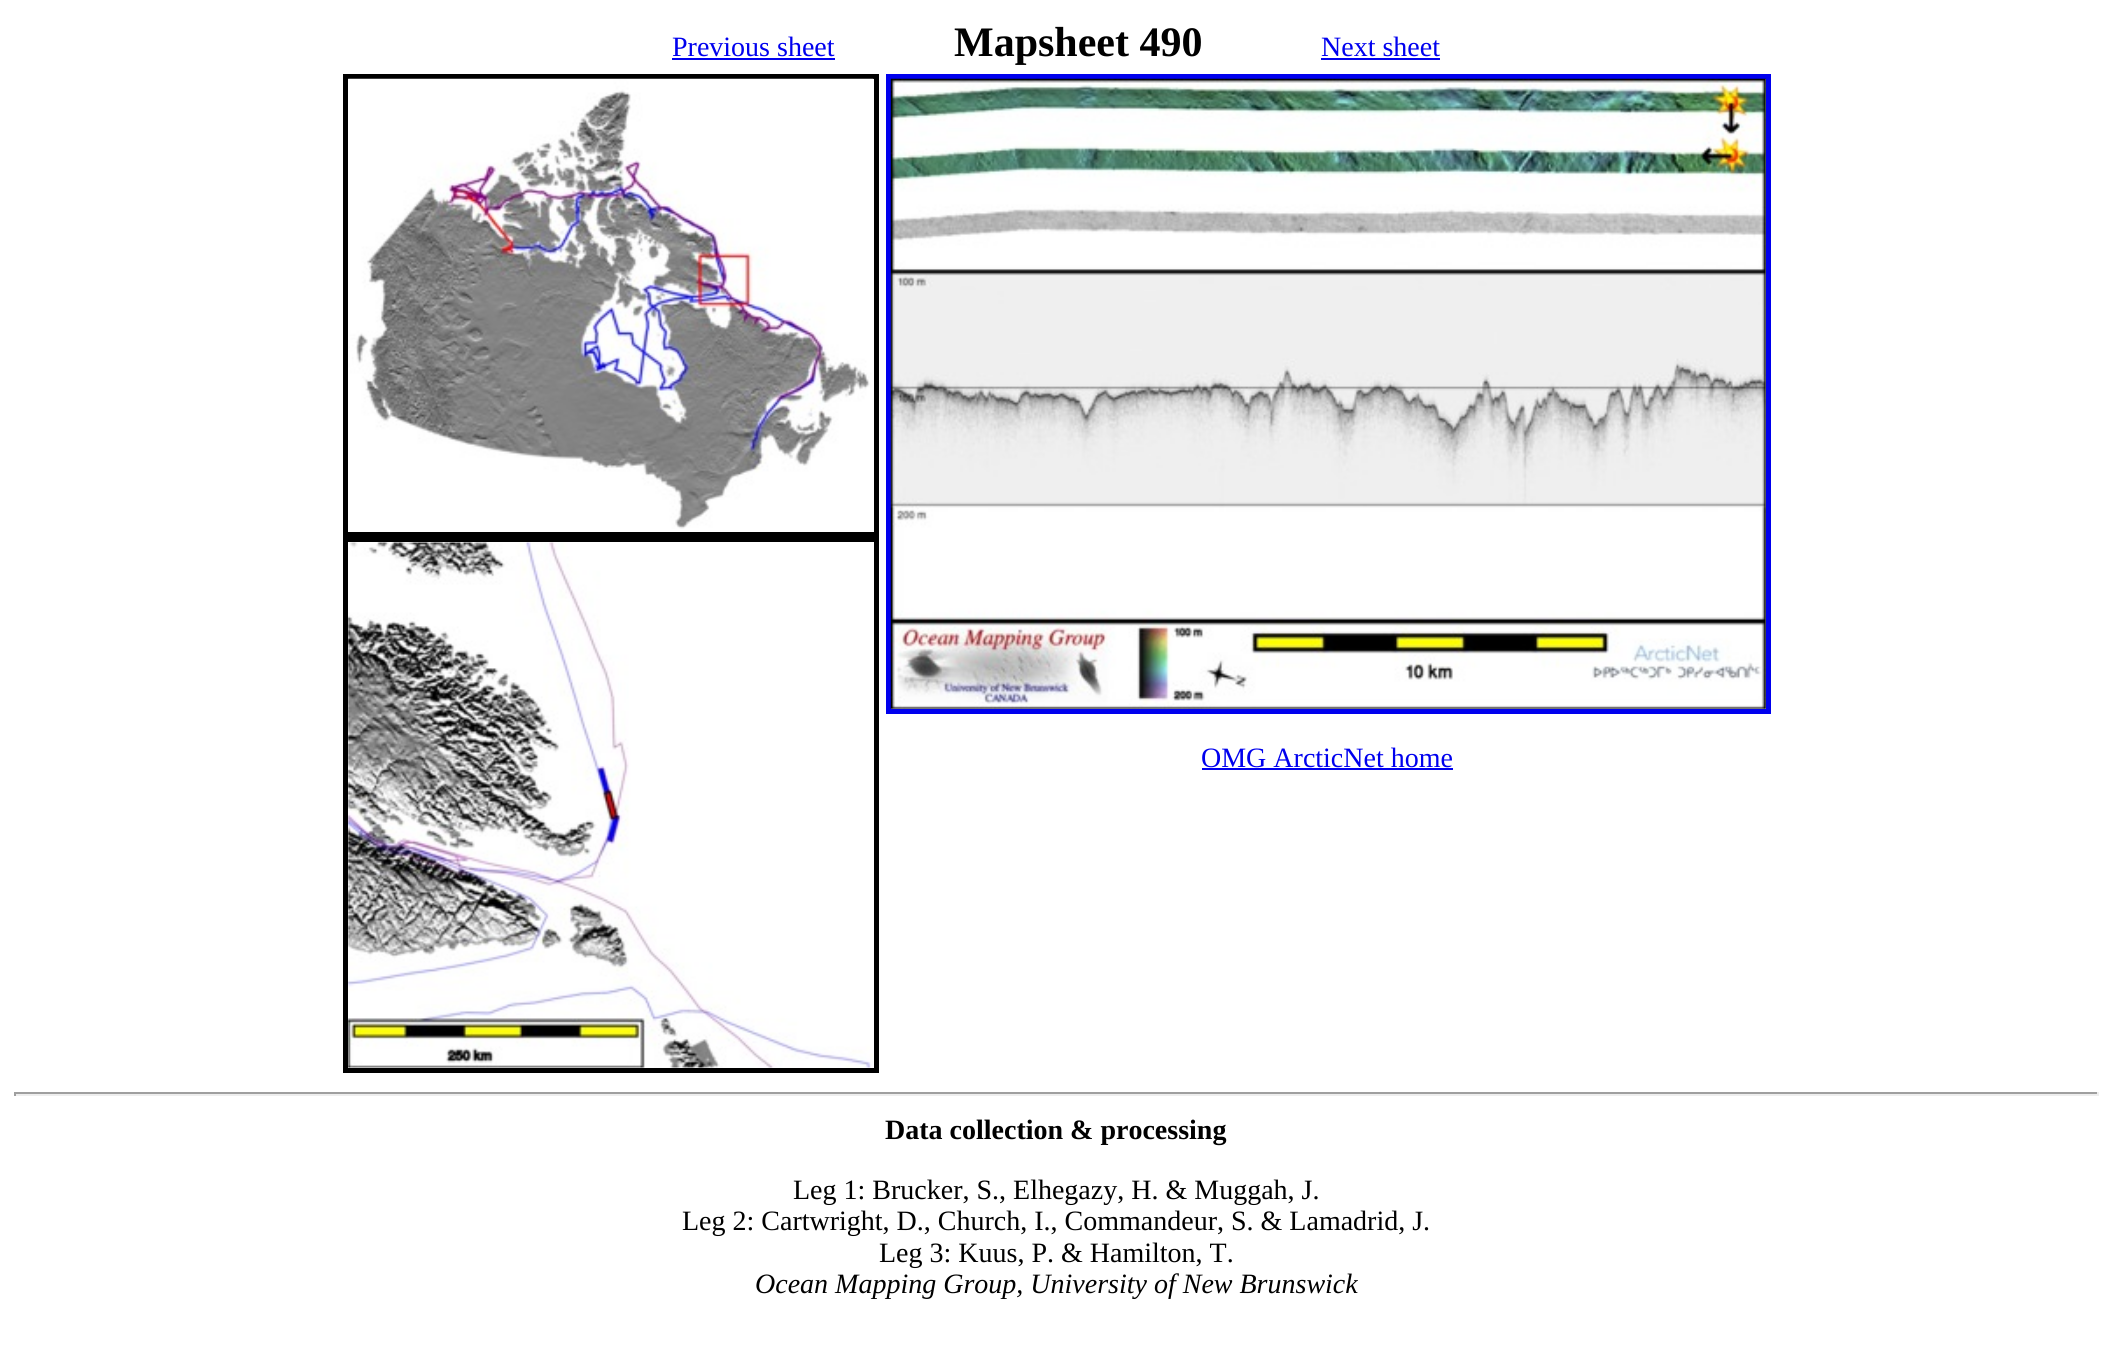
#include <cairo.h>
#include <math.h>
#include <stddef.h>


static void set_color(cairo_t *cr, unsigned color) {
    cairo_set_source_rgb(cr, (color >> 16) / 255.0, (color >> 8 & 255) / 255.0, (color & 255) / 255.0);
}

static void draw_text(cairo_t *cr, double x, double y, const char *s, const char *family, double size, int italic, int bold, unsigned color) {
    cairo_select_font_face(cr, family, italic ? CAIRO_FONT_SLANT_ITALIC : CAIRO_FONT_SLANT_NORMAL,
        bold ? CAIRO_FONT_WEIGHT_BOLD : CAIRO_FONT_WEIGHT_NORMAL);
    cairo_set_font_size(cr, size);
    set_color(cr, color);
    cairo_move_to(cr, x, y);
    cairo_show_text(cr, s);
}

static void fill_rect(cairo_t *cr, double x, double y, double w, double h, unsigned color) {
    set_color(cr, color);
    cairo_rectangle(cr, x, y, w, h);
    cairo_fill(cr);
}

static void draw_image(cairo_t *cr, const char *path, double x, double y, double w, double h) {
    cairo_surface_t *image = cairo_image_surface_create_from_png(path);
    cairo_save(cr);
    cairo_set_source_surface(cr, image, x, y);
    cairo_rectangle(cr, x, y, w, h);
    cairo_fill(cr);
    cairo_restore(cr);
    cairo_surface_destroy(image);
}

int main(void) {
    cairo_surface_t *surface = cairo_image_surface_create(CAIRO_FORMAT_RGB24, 2112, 1368);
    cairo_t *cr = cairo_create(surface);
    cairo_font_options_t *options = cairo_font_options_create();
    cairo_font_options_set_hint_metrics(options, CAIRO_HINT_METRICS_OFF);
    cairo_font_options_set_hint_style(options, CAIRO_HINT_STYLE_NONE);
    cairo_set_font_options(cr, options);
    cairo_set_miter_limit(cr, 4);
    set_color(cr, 0xFFFFFF);
    cairo_paint(cr);
    draw_text(cr, 672, 56, "Previous sheet", "Liberation Serif", 28, 0, 0, 0x0000EE);
    fill_rect(cr, 672, 58, 163, 2, 0x0000EE);
    draw_text(cr, 954, 56, "Mapsheet 490", "Liberation Serif", 42, 0, 1, 0x000000);
    draw_text(cr, 1321, 56, "Next sheet", "Liberation Serif", 28, 0, 0, 0x0000EE);
    fill_rect(cr, 1321, 58, 119, 2, 0x0000EE);
    cairo_rectangle(cr, 345.5, 76.5, 531, 458);
    set_color(cr, 0x000000);
    cairo_set_line_width(cr, 5);
    cairo_stroke(cr);
    draw_image(cr, "assets/img1.png", 348, 78, 526, 451);
    cairo_rectangle(cr, 345.5, 539.5, 531, 531);
    cairo_stroke(cr);
    draw_image(cr, "assets/img2.png", 348, 542, 525, 526);
    cairo_rectangle(cr, 888.5, 76.5, 880, 635);
    set_color(cr, 0x0000EE);
    cairo_stroke(cr);
    draw_image(cr, "assets/img3.png", 890, 78, 876, 631);
    draw_text(cr, 1201, 767, "OMG ArcticNet home", "Liberation Serif", 28, 0, 0, 0x0000EE);
    fill_rect(cr, 1202, 768, 251, 2, 0x0000EE);
    fill_rect(cr, 14, 1092, 2084, 2, 0x9F9F9F);
    fill_rect(cr, 2097, 1092, 2, 4, 0xEEEEEE);
    fill_rect(cr, 14, 1094, 2084, 2, 0xEEEEEE);
    fill_rect(cr, 14, 1092, 2, 4, 0x9F9F9F);
    draw_text(cr, 885, 1139, "Data collection & processing", "Liberation Serif", 28, 0, 1, 0x000000);
    draw_text(cr, 793, 1199, "Leg 1: Brucker, S., Elhegazy, H. & Muggah, J.", "Liberation Serif", 28, 0, 0, 0x000000);
    draw_text(cr, 682, 1230, "Leg 2: Cartwright, D., Church, I., Commandeur, S. & Lamadrid, J.", "Liberation Serif", 28, 0, 0, 0x000000);
    draw_text(cr, 879, 1262, "Leg 3: Kuus, P. & Hamilton, T.", "Liberation Serif", 28, 0, 0, 0x000000);
    draw_text(cr, 755, 1293, "Ocean Mapping Group, University of New Brunswick", "Liberation Serif", 28, 1, 0, 0x000000);
    cairo_surface_write_to_png(surface, "output.png");
    cairo_font_options_destroy(options);
    cairo_destroy(cr);
    cairo_surface_destroy(surface);
    return 0;
}
